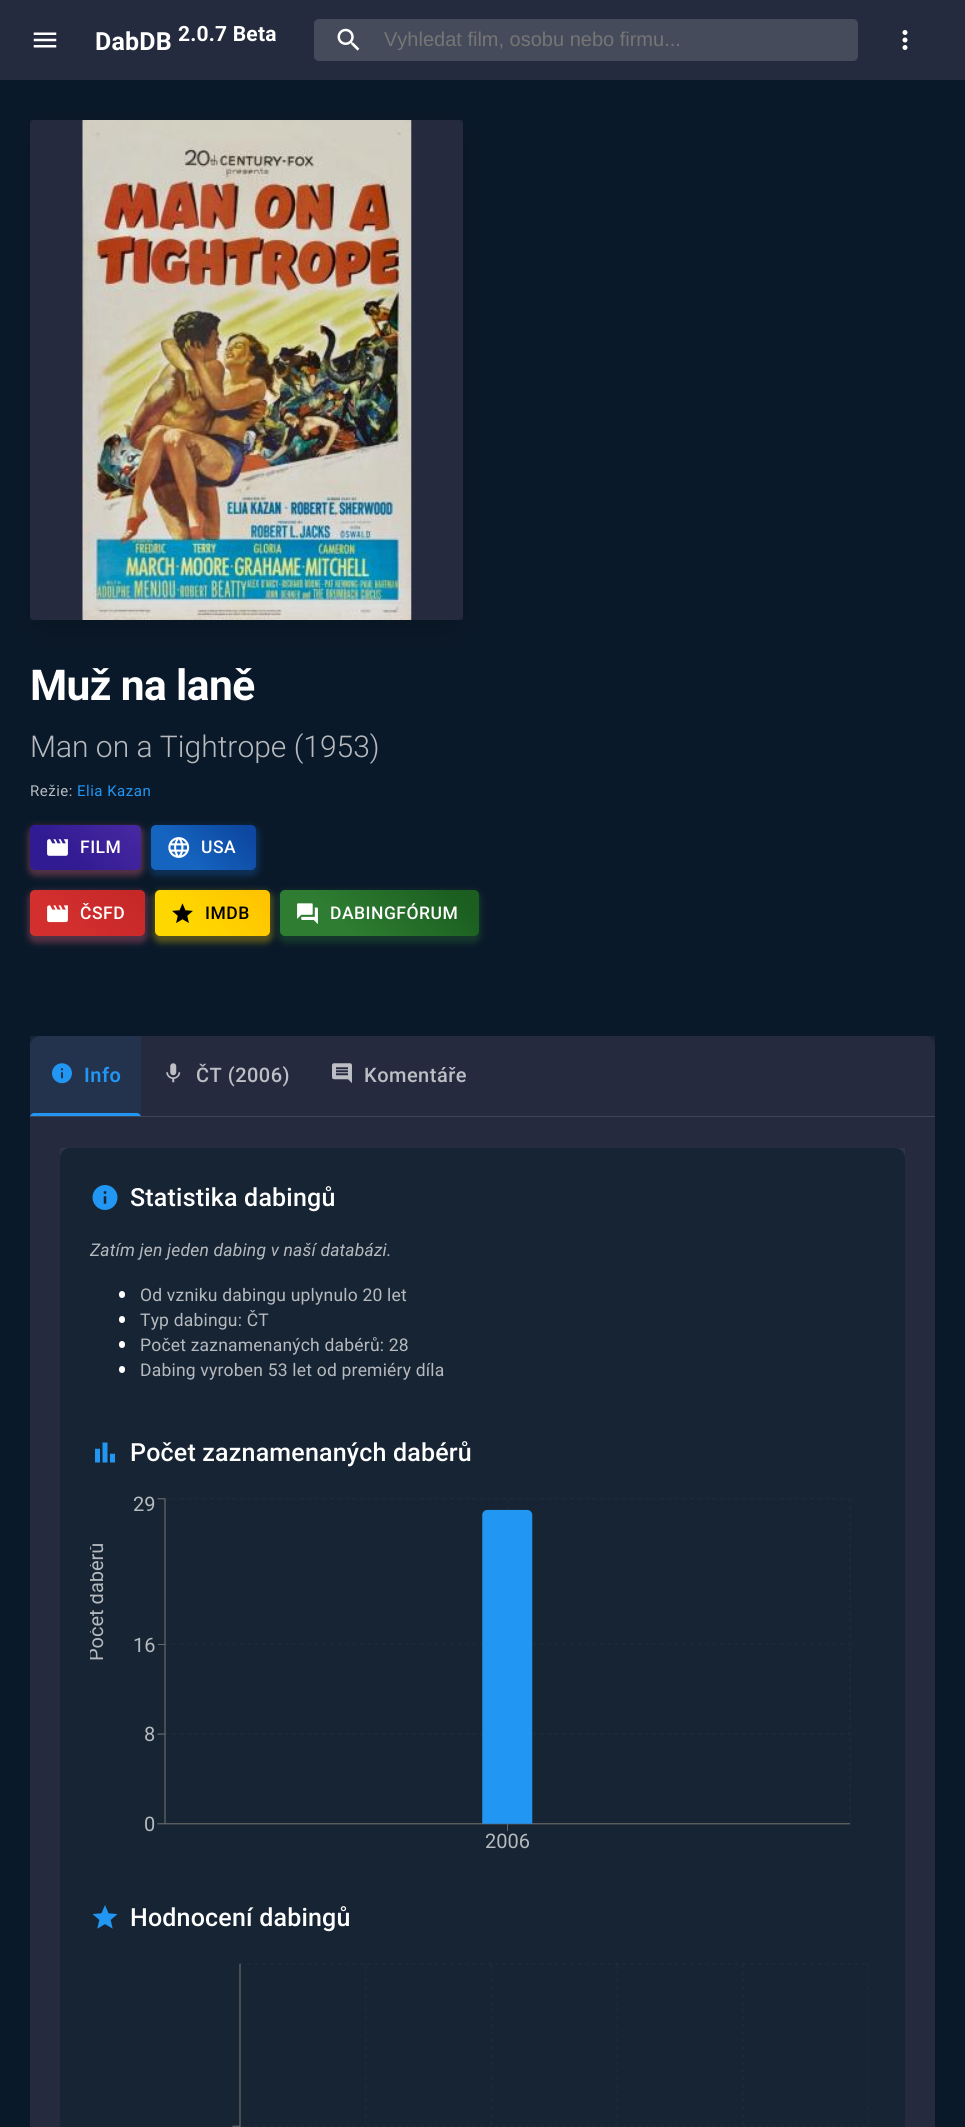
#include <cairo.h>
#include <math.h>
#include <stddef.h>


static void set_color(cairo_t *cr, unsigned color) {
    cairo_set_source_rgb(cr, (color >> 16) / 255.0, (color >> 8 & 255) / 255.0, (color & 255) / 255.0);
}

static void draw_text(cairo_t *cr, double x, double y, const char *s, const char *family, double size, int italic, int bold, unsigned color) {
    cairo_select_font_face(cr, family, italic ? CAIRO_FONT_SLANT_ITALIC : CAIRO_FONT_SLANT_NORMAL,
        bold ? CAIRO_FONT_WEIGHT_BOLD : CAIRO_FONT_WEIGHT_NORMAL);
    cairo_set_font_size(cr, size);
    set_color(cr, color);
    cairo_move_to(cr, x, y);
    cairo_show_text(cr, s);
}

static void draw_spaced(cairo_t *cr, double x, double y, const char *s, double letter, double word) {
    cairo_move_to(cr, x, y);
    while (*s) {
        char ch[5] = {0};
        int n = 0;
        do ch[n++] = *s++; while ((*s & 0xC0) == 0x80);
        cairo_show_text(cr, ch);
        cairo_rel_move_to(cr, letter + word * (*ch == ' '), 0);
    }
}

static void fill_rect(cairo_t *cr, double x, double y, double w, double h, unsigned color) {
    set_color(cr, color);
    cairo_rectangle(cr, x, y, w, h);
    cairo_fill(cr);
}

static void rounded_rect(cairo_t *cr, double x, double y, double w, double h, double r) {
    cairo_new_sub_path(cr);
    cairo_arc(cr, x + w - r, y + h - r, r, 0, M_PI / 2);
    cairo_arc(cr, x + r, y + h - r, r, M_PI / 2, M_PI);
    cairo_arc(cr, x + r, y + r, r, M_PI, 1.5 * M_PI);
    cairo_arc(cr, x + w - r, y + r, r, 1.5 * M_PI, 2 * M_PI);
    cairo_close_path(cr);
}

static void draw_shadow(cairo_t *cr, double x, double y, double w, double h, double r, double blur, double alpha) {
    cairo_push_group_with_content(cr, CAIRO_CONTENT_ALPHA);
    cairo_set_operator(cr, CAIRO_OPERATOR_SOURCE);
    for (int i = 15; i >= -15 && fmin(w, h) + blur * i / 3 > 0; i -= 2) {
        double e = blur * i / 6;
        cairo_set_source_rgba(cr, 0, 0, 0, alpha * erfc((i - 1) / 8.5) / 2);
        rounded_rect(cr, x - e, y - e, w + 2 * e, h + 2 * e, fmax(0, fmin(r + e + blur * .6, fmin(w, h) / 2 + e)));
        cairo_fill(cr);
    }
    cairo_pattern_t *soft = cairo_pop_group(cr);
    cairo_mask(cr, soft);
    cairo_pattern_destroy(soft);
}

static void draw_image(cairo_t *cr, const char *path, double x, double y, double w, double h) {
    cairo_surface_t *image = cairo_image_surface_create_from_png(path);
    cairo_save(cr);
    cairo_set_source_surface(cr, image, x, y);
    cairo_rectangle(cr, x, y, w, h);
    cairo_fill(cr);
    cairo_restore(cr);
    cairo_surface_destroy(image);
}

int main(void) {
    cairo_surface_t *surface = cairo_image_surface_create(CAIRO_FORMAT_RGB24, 965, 2127);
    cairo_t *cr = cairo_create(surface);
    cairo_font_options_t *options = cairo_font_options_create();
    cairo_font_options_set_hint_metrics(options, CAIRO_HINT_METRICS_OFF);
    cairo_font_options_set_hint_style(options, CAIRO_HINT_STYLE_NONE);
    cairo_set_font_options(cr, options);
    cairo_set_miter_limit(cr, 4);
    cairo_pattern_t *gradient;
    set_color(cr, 0x0A1929);
    cairo_paint(cr);
    set_color(cr, 0x000000);
    draw_shadow(cr, 45, 145, 403, 470, 0, 25, 0.3);
    fill_rect(cr, 0, 0, 965, 80, 0x252B3E);
    draw_image(cr, "assets/img1.png", 33, 32, 24, 16);
    cairo_select_font_face(cr, "Roboto", CAIRO_FONT_SLANT_NORMAL, CAIRO_FONT_WEIGHT_BOLD);
    cairo_set_font_size(cr, 25);
    set_color(cr, 0xFFFFFF);
    draw_spaced(cr, 95, 50, "DabDB", 0.2, 0);
    cairo_set_font_size(cr, 21);
    draw_spaced(cr, 178, 41, "2.0.7 Beta", 0.2, 0);
    set_color(cr, 0x464B5B);
    rounded_rect(cr, 314, 19, 544, 42, 5);
    cairo_fill(cr);
    draw_image(cr, "assets/img2.png", 337, 28, 23, 23);
    draw_text(cr, 384, 46, "Vyhledat film, osobu nebo firmu...", "Liberation Sans", 20, 0, 0, 0x757575);
    draw_image(cr, "assets/img3.png", 902, 30, 6, 20);
    set_color(cr, 0x1A2035);
    rounded_rect(cr, 30, 120, 433, 500, 5);
    cairo_fill(cr);
    cairo_set_source_rgba(cr, 1, 1, 1, 0.05);
    cairo_rectangle(cr, 30, 120, 433, 500);
    cairo_fill(cr);
    draw_image(cr, "assets/img4.png", 82, 120, 330, 500);
    cairo_select_font_face(cr, "Roboto", CAIRO_FONT_SLANT_NORMAL, CAIRO_FONT_WEIGHT_BOLD);
    cairo_set_font_size(cr, 42.5);
    set_color(cr, 0xFFFFFF);
    draw_spaced(cr, 30, 700, "Muž na laně", -0.6, 0);
    draw_text(cr, 30, 757, "Man on a Tightrope (1953)", "Roboto Light", 30, 0, 0, 0xB6BABF);
    cairo_select_font_face(cr, "Roboto", CAIRO_FONT_SLANT_NORMAL, CAIRO_FONT_WEIGHT_NORMAL);
    cairo_set_font_size(cr, 15);
    draw_spaced(cr, 30, 796, "Režie:", 0.5, 0);
    set_color(cr, 0x2196F3);
    draw_spaced(cr, 77, 796, "Elia Kazan", 0.5, 0);
    set_color(cr, 0xFF6987);
    draw_shadow(cr, 28, 826, 116, 50, 8, 3, 0.3);
    gradient = cairo_pattern_create_linear(47, 887, 125, 808);
    cairo_pattern_add_color_stop_rgba(gradient, 0.3, 0.192, 0.106, 0.573, 1);
    cairo_pattern_add_color_stop_rgba(gradient, 0.9, 0.271, 0.153, 0.627, 1);
    cairo_set_source(cr, gradient);
    cairo_pattern_destroy(gradient);
    rounded_rect(cr, 30, 825, 111, 45, 5);
    cairo_fill(cr);
    draw_image(cr, "assets/img5.png", 47, 839, 21, 17);
    cairo_select_font_face(cr, "Roboto Medium", CAIRO_FONT_SLANT_NORMAL, CAIRO_FONT_WEIGHT_NORMAL);
    cairo_set_font_size(cr, 17.5);
    set_color(cr, 0xFFFFFF);
    draw_spaced(cr, 80, 853, "FILM", 0.5, 0);
    set_color(cr, 0x1565C0);
    draw_shadow(cr, 149, 826, 110, 50, 8, 3, 0.3);
    gradient = cairo_pattern_create_linear(166, 885, 241, 810);
    cairo_pattern_add_color_stop_rgba(gradient, 0.3, 0.082, 0.396, 0.753, 1);
    cairo_pattern_add_color_stop_rgba(gradient, 0.9, 0.051, 0.278, 0.631, 1);
    cairo_set_source(cr, gradient);
    cairo_pattern_destroy(gradient);
    rounded_rect(cr, 151, 825, 105, 45, 5);
    cairo_fill(cr);
    draw_image(cr, "assets/img6.png", 168, 837, 22, 21);
    set_color(cr, 0xFFFFFF);
    draw_spaced(cr, 201, 853, "USA", 0.5, 0);
    set_color(cr, 0xFF6987);
    draw_shadow(cr, 28, 891, 120, 52, 8, 3, 0.3);
    gradient = cairo_pattern_create_linear(47, 953, 128, 873);
    cairo_pattern_add_color_stop_rgba(gradient, 0.3, 0.827, 0.184, 0.184, 1);
    cairo_pattern_add_color_stop_rgba(gradient, 0.9, 0.776, 0.157, 0.157, 1);
    cairo_set_source(cr, gradient);
    cairo_pattern_destroy(gradient);
    rounded_rect(cr, 30, 890, 115, 46, 5);
    cairo_fill(cr);
    draw_image(cr, "assets/img7.png", 47, 905, 21, 18);
    set_color(cr, 0xFFFFFF);
    draw_spaced(cr, 80, 919, "ČSFD", 0.5, 0);
    set_color(cr, 0xFFD600);
    draw_shadow(cr, 153, 891, 120, 52, 8, 3, 0.3);
    gradient = cairo_pattern_create_linear(172, 953, 253, 873);
    cairo_pattern_add_color_stop_rgba(gradient, 0.3, 1, 0.843, 0, 1);
    cairo_pattern_add_color_stop_rgba(gradient, 0.9, 1, 0.769, 0, 1);
    cairo_set_source(cr, gradient);
    cairo_pattern_destroy(gradient);
    rounded_rect(cr, 155, 890, 115, 46, 5);
    cairo_fill(cr);
    draw_image(cr, "assets/img8.png", 172, 903, 21, 20);
    set_color(cr, 0x000000);
    draw_spaced(cr, 205, 919, "IMDB", 0.5, 0);
    set_color(cr, 0x2E7D32);
    draw_shadow(cr, 278, 891, 203, 52, 8, 3, 0.3);
    gradient = cairo_pattern_create_linear(318, 974, 441, 852);
    cairo_pattern_add_color_stop_rgba(gradient, 0.3, 0.18, 0.49, 0.196, 1);
    cairo_pattern_add_color_stop_rgba(gradient, 0.9, 0.106, 0.369, 0.125, 1);
    cairo_set_source(cr, gradient);
    cairo_pattern_destroy(gradient);
    rounded_rect(cr, 280, 890, 199, 46, 5);
    cairo_fill(cr);
    draw_image(cr, "assets/img9.png", 297, 903, 21, 21);
    set_color(cr, 0xFFFFFF);
    draw_spaced(cr, 330, 919, "DABINGFÓRUM", 0.5, 0);
    set_color(cr, 0x1A2035);
    rounded_rect(cr, 30, 1036, 905, 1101, 10);
    cairo_fill(cr);
    cairo_set_source_rgba(cr, 1, 1, 1, 0.05);
    cairo_rectangle(cr, 30, 1036, 905, 1091);
    cairo_fill(cr);
    fill_rect(cr, 30, 1116, 905, 1, 0x404556);
    cairo_set_source_rgba(cr, 0.129, 0.588, 0.953, 0.08);
    cairo_new_path(cr);
    cairo_move_to(cr, 40, 1036);
    cairo_line_to(cr, 141, 1036);
    cairo_line_to(cr, 141, 1116);
    cairo_line_to(cr, 30, 1116);
    cairo_line_to(cr, 30, 1046);
    cairo_curve_to(cr, 30, 1040.5, 34.5, 1036, 40, 1036);
    cairo_close_path(cr);
    cairo_fill(cr);
    draw_image(cr, "assets/img10.png", 52, 1063, 20, 21);
    cairo_select_font_face(cr, "Roboto SemiBold", CAIRO_FONT_SLANT_NORMAL, CAIRO_FONT_WEIGHT_NORMAL);
    cairo_set_font_size(cr, 20);
    set_color(cr, 0x2196F3);
    draw_spaced(cr, 84, 1082, "Info", 0.5, 0);
    draw_image(cr, "assets/img11.png", 166, 1063, 15, 20);
    cairo_select_font_face(cr, "Roboto Medium", CAIRO_FONT_SLANT_NORMAL, CAIRO_FONT_WEIGHT_NORMAL);
    set_color(cr, 0xBEBFC5);
    draw_spaced(cr, 196, 1082, "ČT (2006)", 0.5, 0);
    draw_image(cr, "assets/img12.png", 332, 1063, 20, 20);
    draw_spaced(cr, 364, 1082, "Komentáře", 0.5, 0);
    set_color(cr, 0x2196F3);
    cairo_new_path(cr);
    cairo_move_to(cr, 34, 1113);
    cairo_line_to(cr, 137, 1113);
    cairo_curve_to(cr, 139, 1113, 141, 1115, 141, 1117);
    cairo_line_to(cr, 141, 1116);
    cairo_line_to(cr, 30, 1116);
    cairo_line_to(cr, 30, 1117);
    cairo_curve_to(cr, 30, 1115, 32, 1113, 34, 1113);
    cairo_close_path(cr);
    cairo_fill(cr);
    set_color(cr, 0x0A1929);
    rounded_rect(cr, 60, 1148, 845, 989, 10);
    cairo_fill(cr);
    cairo_set_source_rgba(cr, 1, 1, 1, 0.05);
    cairo_rectangle(cr, 60, 1148, 845, 979);
    cairo_fill(cr);
    draw_image(cr, "assets/img13.png", 92, 1185, 26, 25);
    cairo_set_font_size(cr, 25);
    set_color(cr, 0xFFFFFF);
    draw_spaced(cr, 130, 1206, "Statistika dabingů", 0.2, 0);
    cairo_select_font_face(cr, "Roboto", CAIRO_FONT_SLANT_ITALIC, CAIRO_FONT_WEIGHT_NORMAL);
    cairo_set_font_size(cr, 17.5);
    set_color(cr, 0xB6BABF);
    draw_spaced(cr, 90, 1256, "Zatím jen jeden dabing v naší databázi.", 0.2, 0);
    set_color(cr, 0xFFFFFF);
    rounded_rect(cr, 119, 1291, 6, 7, 3);
    cairo_fill(cr);
    cairo_select_font_face(cr, "Roboto", CAIRO_FONT_SLANT_NORMAL, CAIRO_FONT_WEIGHT_NORMAL);
    set_color(cr, 0xB6BABF);
    draw_spaced(cr, 140, 1301, "Od vzniku dabingu uplynulo 20 let", 0.2, 0);
    set_color(cr, 0xFFFFFF);
    rounded_rect(cr, 119, 1316, 6, 7, 3);
    cairo_fill(cr);
    set_color(cr, 0xB6BABF);
    draw_spaced(cr, 140, 1326, "Typ dabingu: ČT", 0.2, 0);
    set_color(cr, 0xFFFFFF);
    rounded_rect(cr, 119, 1341, 6, 7, 3);
    cairo_fill(cr);
    set_color(cr, 0xB6BABF);
    draw_spaced(cr, 140, 1351, "Počet zaznamenaných dabérů: 28", 0.2, 0);
    set_color(cr, 0xFFFFFF);
    rounded_rect(cr, 119, 1366, 6, 7, 3);
    cairo_fill(cr);
    set_color(cr, 0xB6BABF);
    draw_spaced(cr, 140, 1376, "Dabing vyroben 53 let od premiéry díla", 0.2, 0);
    draw_image(cr, "assets/img14.png", 95, 1442, 20, 21);
    cairo_select_font_face(cr, "Roboto Medium", CAIRO_FONT_SLANT_NORMAL, CAIRO_FONT_WEIGHT_NORMAL);
    cairo_set_font_size(cr, 25);
    set_color(cr, 0xFFFFFF);
    draw_spaced(cr, 130, 1461, "Počet zaznamenaných dabérů", 0.2, 0);
    cairo_save(cr);
    cairo_rectangle(cr, 90, 1493, 785, 375);
    cairo_clip(cr);
    cairo_save(cr);
    cairo_translate(cr, 103, 1661);
    cairo_rotate(cr, -90 * M_PI / 180);
    draw_text(cr, 0, 0, "Počet dabérů", "Roboto", 20, 0, 0, 0xB6BABF);
    cairo_restore(cr);
    cairo_restore(cr);
    draw_text(cr, 133, 1511, "29", "Roboto", 20, 0, 0, 0xB6BABF);
    draw_image(cr, "assets/img15.png", 157, 1498, 694, 333);
    draw_text(cr, 133, 1652, "16", "Roboto", 20, 0, 0, 0xB6BABF);
    draw_text(cr, 144, 1741, "8", "Roboto", 20, 0, 0, 0xB6BABF);
    draw_text(cr, 144, 1831, "0", "Roboto", 20, 0, 0, 0xB6BABF);
    draw_text(cr, 485, 1848, "2006", "Roboto", 20, 0, 0, 0xB6BABF);
    draw_image(cr, "assets/img16.png", 92, 1905, 26, 24);
    cairo_select_font_face(cr, "Roboto Medium", CAIRO_FONT_SLANT_NORMAL, CAIRO_FONT_WEIGHT_NORMAL);
    cairo_set_font_size(cr, 25);
    set_color(cr, 0xFFFFFF);
    draw_spaced(cr, 130, 1926, "Hodnocení dabingů", 0.2, 0);
    draw_image(cr, "assets/img17.png", 232, 1963, 637, 164);
    cairo_surface_write_to_png(surface, "output.png");
    cairo_font_options_destroy(options);
    cairo_destroy(cr);
    cairo_surface_destroy(surface);
    return 0;
}
